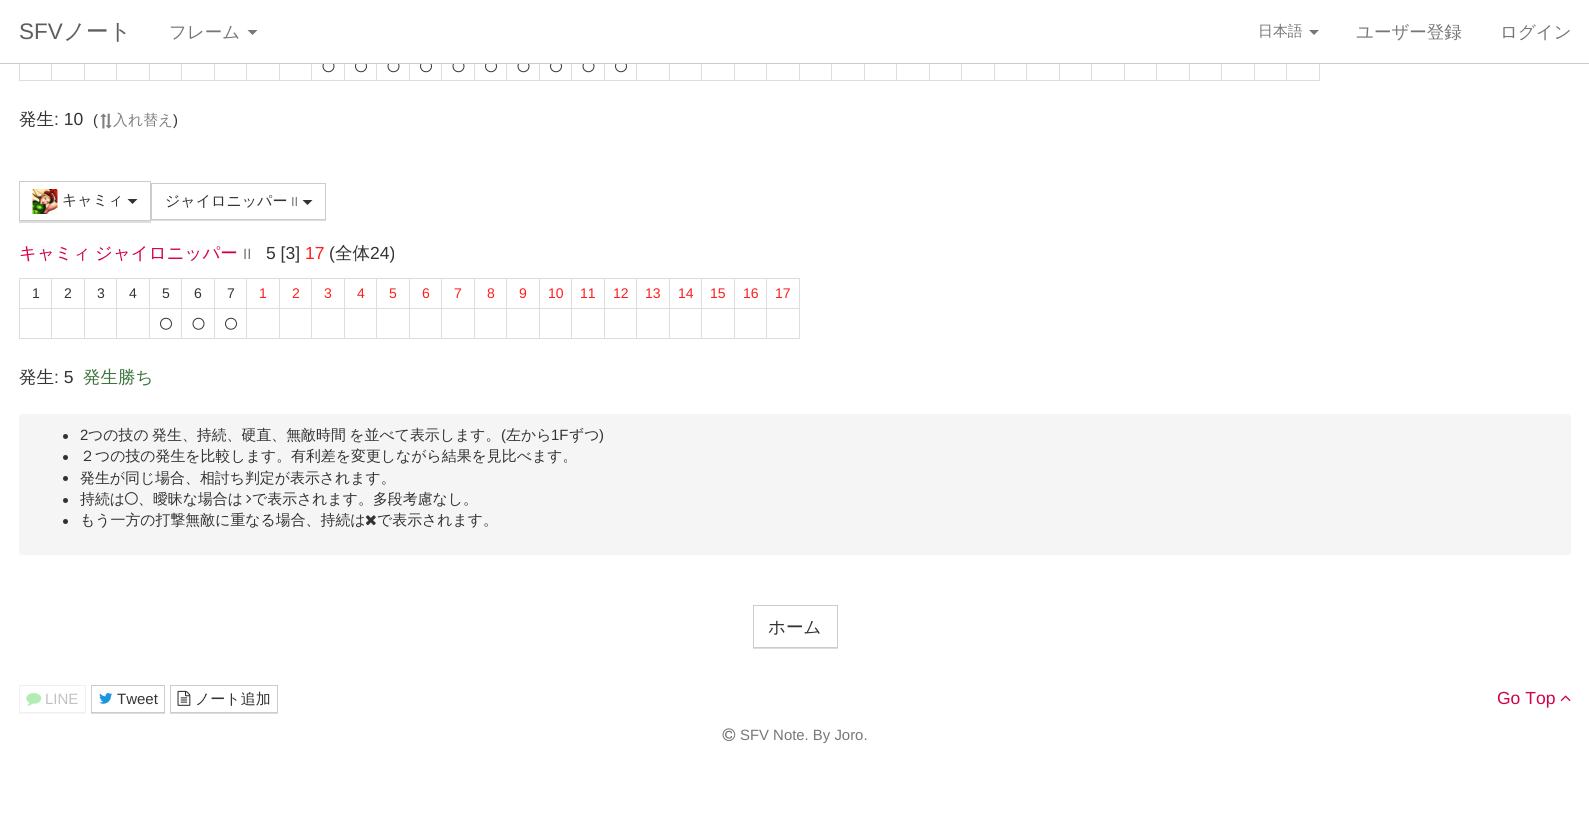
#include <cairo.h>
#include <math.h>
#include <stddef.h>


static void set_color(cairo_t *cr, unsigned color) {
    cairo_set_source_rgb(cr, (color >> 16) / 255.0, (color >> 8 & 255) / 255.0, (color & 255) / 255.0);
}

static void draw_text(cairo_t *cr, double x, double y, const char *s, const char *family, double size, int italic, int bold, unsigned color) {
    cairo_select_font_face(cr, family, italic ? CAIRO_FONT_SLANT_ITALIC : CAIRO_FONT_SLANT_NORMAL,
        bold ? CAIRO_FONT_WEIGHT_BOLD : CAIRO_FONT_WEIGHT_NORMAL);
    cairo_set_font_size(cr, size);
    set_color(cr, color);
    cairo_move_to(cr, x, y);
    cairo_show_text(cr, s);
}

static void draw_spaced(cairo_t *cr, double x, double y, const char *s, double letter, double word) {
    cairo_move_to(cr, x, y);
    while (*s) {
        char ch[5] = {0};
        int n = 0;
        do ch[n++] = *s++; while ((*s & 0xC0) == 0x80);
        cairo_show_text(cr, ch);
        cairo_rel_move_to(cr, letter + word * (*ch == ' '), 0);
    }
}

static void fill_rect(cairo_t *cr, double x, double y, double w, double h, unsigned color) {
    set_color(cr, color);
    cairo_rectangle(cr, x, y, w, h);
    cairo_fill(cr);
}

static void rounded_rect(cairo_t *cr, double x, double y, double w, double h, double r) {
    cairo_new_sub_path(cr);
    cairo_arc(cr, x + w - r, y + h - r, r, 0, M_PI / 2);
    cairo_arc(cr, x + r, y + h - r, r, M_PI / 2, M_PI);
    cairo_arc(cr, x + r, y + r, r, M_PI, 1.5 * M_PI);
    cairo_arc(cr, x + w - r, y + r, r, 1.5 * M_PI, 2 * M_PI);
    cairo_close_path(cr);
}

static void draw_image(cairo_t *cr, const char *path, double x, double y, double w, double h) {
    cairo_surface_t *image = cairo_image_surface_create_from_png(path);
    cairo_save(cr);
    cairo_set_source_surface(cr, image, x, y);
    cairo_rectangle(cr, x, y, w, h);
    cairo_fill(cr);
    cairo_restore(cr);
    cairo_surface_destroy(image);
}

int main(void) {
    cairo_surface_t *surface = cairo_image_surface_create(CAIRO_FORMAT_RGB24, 1589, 835);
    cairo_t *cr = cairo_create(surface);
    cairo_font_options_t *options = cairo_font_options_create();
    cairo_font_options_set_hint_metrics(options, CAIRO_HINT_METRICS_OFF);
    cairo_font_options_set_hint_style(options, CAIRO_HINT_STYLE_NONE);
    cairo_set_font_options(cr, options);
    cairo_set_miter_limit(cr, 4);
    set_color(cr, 0xFFFFFF);
    cairo_paint(cr);
    fill_rect(cr, 0, 63, 1589, 1, 0xCCCCCC);
    draw_text(cr, 19, 39, "SFV", "Liberation Sans", 22.5, 0, 0, 0x5E5E5E);
    draw_text(cr, 63, 39, "ノート", "WenQuanYi Zen Hei Medium", 22.5, 0, 0, 0x5E5E5E);
    draw_text(cr, 169, 38, "フレーム", "WenQuanYi Zen Hei Medium", 17.5, 0, 0, 0x777777);
    cairo_new_path(cr);
    cairo_move_to(cr, 247.5, 30);
    cairo_line_to(cr, 257.5, 30);
    cairo_line_to(cr, 252.5, 35);
    cairo_close_path(cr);
    cairo_fill(cr);
    draw_text(cr, 1258, 36, "日本語", "WenQuanYi Zen Hei Medium", 14.9, 0, 0, 0x777777);
    cairo_new_path(cr);
    cairo_move_to(cr, 1309, 30);
    cairo_line_to(cr, 1319, 30);
    cairo_line_to(cr, 1314, 35);
    cairo_close_path(cr);
    cairo_fill(cr);
    draw_text(cr, 1356, 38, "ユーザー登録", "WenQuanYi Zen Hei Medium", 17.5, 0, 0, 0x777777);
    draw_text(cr, 1500, 38, "ログイン", "WenQuanYi Zen Hei Medium", 17.5, 0, 0, 0x777777);
    fill_rect(cr, 1319, 64, 1, 17, 0xDDDDDD);
    fill_rect(cr, 19, 80, 1301, 1, 0xDDDDDD);
    fill_rect(cr, 19, 64, 1, 17, 0xDDDDDD);
    fill_rect(cr, 51, 64, 1, 17, 0xDDDDDD);
    fill_rect(cr, 84, 64, 1, 17, 0xDDDDDD);
    fill_rect(cr, 116, 64, 1, 17, 0xDDDDDD);
    fill_rect(cr, 149, 64, 1, 17, 0xDDDDDD);
    fill_rect(cr, 181, 64, 1, 17, 0xDDDDDD);
    fill_rect(cr, 214, 64, 1, 17, 0xDDDDDD);
    fill_rect(cr, 246, 64, 1, 17, 0xDDDDDD);
    fill_rect(cr, 279, 64, 1, 17, 0xDDDDDD);
    fill_rect(cr, 311, 64, 1, 17, 0xDDDDDD);
    draw_image(cr, "assets/img1.png", 322, 64, 13, 9);
    fill_rect(cr, 344, 64, 1, 17, 0xDDDDDD);
    draw_image(cr, "assets/img2.png", 355, 64, 12, 9);
    fill_rect(cr, 376, 64, 1, 17, 0xDDDDDD);
    draw_image(cr, "assets/img1.png", 387, 64, 13, 9);
    fill_rect(cr, 409, 64, 1, 17, 0xDDDDDD);
    draw_image(cr, "assets/img2.png", 420, 64, 12, 9);
    fill_rect(cr, 441, 64, 1, 17, 0xDDDDDD);
    draw_image(cr, "assets/img1.png", 452, 64, 13, 9);
    fill_rect(cr, 474, 64, 1, 17, 0xDDDDDD);
    draw_image(cr, "assets/img2.png", 485, 64, 12, 9);
    fill_rect(cr, 506, 64, 1, 17, 0xDDDDDD);
    draw_image(cr, "assets/img1.png", 517, 64, 13, 9);
    fill_rect(cr, 539, 64, 1, 17, 0xDDDDDD);
    draw_image(cr, "assets/img2.png", 550, 64, 12, 9);
    fill_rect(cr, 571, 64, 1, 17, 0xDDDDDD);
    draw_image(cr, "assets/img1.png", 582, 64, 13, 9);
    fill_rect(cr, 604, 64, 1, 17, 0xDDDDDD);
    draw_image(cr, "assets/img2.png", 615, 64, 12, 9);
    fill_rect(cr, 636, 64, 1, 17, 0xDDDDDD);
    fill_rect(cr, 669, 64, 1, 17, 0xDDDDDD);
    fill_rect(cr, 701, 64, 1, 17, 0xDDDDDD);
    fill_rect(cr, 734, 64, 1, 17, 0xDDDDDD);
    fill_rect(cr, 766, 64, 1, 17, 0xDDDDDD);
    fill_rect(cr, 799, 64, 1, 17, 0xDDDDDD);
    fill_rect(cr, 831, 64, 1, 17, 0xDDDDDD);
    fill_rect(cr, 864, 64, 1, 17, 0xDDDDDD);
    fill_rect(cr, 896, 64, 1, 17, 0xDDDDDD);
    fill_rect(cr, 929, 64, 1, 17, 0xDDDDDD);
    fill_rect(cr, 961, 64, 1, 17, 0xDDDDDD);
    fill_rect(cr, 994, 64, 1, 17, 0xDDDDDD);
    fill_rect(cr, 1026, 64, 1, 17, 0xDDDDDD);
    fill_rect(cr, 1059, 64, 1, 17, 0xDDDDDD);
    fill_rect(cr, 1091, 64, 1, 17, 0xDDDDDD);
    fill_rect(cr, 1124, 64, 1, 17, 0xDDDDDD);
    fill_rect(cr, 1156, 64, 1, 17, 0xDDDDDD);
    fill_rect(cr, 1189, 64, 1, 17, 0xDDDDDD);
    fill_rect(cr, 1221, 64, 1, 17, 0xDDDDDD);
    fill_rect(cr, 1254, 64, 1, 17, 0xDDDDDD);
    fill_rect(cr, 1286, 64, 1, 17, 0xDDDDDD);
    draw_text(cr, 19, 125, "発生", "WenQuanYi Zen Hei Medium", 17.5, 0, 0, 0x333333);
    draw_text(cr, 54, 125, ": 10", "Liberation Sans", 17.5, 0, 0, 0x333333);
    draw_text(cr, 93, 125, "(", "Liberation Sans", 14.9, 0, 0, 0x333333);
    draw_image(cr, "assets/img3.png", 100, 113, 12, 16);
    draw_text(cr, 113, 125, "入れ替え", "WenQuanYi Zen Hei Medium", 14.9, 0, 0, 0x808080);
    draw_text(cr, 173, 125, ")", "Liberation Sans", 14.9, 0, 0, 0x333333);
    fill_rect(cr, 19, 221, 132, 2, 0xDDDDDD);
    cairo_rectangle(cr, 19.5, 181.5, 131, 39);
    set_color(cr, 0xCCCCCC);
    cairo_set_line_width(cr, 1);
    cairo_stroke(cr);
    draw_image(cr, "assets/img4.png", 32, 189, 26, 25);
    draw_text(cr, 62, 205, "キャミィ", "WenQuanYi Zen Hei Medium", 15, 0, 0, 0x333333);
    cairo_new_path(cr);
    cairo_move_to(cr, 127.5, 199);
    cairo_line_to(cr, 137.5, 199);
    cairo_line_to(cr, 132.5, 204);
    cairo_close_path(cr);
    cairo_fill(cr);
    set_color(cr, 0xDDDDDD);
    cairo_new_path(cr);
    cairo_move_to(cr, 151, 184);
    cairo_line_to(cr, 151, 221);
    cairo_line_to(cr, 326, 221);
    cairo_line_to(cr, 326, 220);
    cairo_line_to(cr, 151, 220);
    cairo_close_path(cr);
    cairo_fill(cr);
    cairo_rectangle(cr, 151.5, 183.5, 174, 36);
    set_color(cr, 0xCCCCCC);
    cairo_stroke(cr);
    draw_text(cr, 165, 206, "ジャイロニッパー", "WenQuanYi Zen Hei Medium", 15, 0, 0, 0x333333);
    draw_text(cr, 291, 206, "II", "Liberation Sans", 13, 0, 0, 0x777777);
    set_color(cr, 0x333333);
    cairo_new_path(cr);
    cairo_move_to(cr, 302.5, 200);
    cairo_line_to(cr, 312.5, 200);
    cairo_line_to(cr, 307.5, 205);
    cairo_close_path(cr);
    cairo_fill(cr);
    draw_text(cr, 19, 259, "キャミィ", "WenQuanYi Zen Hei Medium", 17.5, 0, 0, 0xD4004B);
    draw_text(cr, 95, 259, "ジャイロニッパー", "WenQuanYi Zen Hei Medium", 17.5, 0, 0, 0xD4004B);
    draw_text(cr, 243, 259, "II", "Liberation Sans", 14.9, 0, 0, 0x777777);
    draw_text(cr, 266, 259, "5 [3]", "Liberation Sans", 17.5, 0, 0, 0x333333);
    draw_text(cr, 305, 259, "17", "Liberation Sans", 17.5, 0, 0, 0xFF1E1E);
    draw_text(cr, 329, 259, "(", "Liberation Sans", 17.5, 0, 0, 0x333333);
    draw_text(cr, 335, 259, "全体", "WenQuanYi Zen Hei Medium", 17.5, 0, 0, 0x333333);
    draw_text(cr, 370, 259, "24)", "Liberation Sans", 17.5, 0, 0, 0x333333);
    fill_rect(cr, 19, 278, 781, 1, 0xDDDDDD);
    fill_rect(cr, 799, 278, 1, 61, 0xDDDDDD);
    fill_rect(cr, 19, 338, 781, 1, 0xDDDDDD);
    fill_rect(cr, 19, 278, 1, 61, 0xDDDDDD);
    draw_text(cr, 32, 298, "1", "Liberation Sans", 14, 0, 0, 0x333333);
    fill_rect(cr, 766, 308, 34, 1, 0xDDDDDD);
    fill_rect(cr, 766, 308, 1, 31, 0xDDDDDD);
    fill_rect(cr, 734, 308, 34, 1, 0xDDDDDD);
    fill_rect(cr, 734, 308, 1, 31, 0xDDDDDD);
    fill_rect(cr, 701, 308, 34, 1, 0xDDDDDD);
    fill_rect(cr, 701, 308, 1, 31, 0xDDDDDD);
    fill_rect(cr, 669, 308, 34, 1, 0xDDDDDD);
    fill_rect(cr, 669, 308, 1, 31, 0xDDDDDD);
    fill_rect(cr, 636, 308, 34, 1, 0xDDDDDD);
    fill_rect(cr, 636, 308, 1, 31, 0xDDDDDD);
    fill_rect(cr, 604, 308, 34, 1, 0xDDDDDD);
    fill_rect(cr, 604, 308, 1, 31, 0xDDDDDD);
    fill_rect(cr, 571, 308, 34, 1, 0xDDDDDD);
    fill_rect(cr, 571, 308, 1, 31, 0xDDDDDD);
    fill_rect(cr, 539, 308, 34, 1, 0xDDDDDD);
    fill_rect(cr, 539, 308, 1, 31, 0xDDDDDD);
    fill_rect(cr, 506, 308, 34, 1, 0xDDDDDD);
    fill_rect(cr, 506, 308, 1, 31, 0xDDDDDD);
    fill_rect(cr, 474, 308, 34, 1, 0xDDDDDD);
    fill_rect(cr, 474, 308, 1, 31, 0xDDDDDD);
    fill_rect(cr, 441, 308, 34, 1, 0xDDDDDD);
    fill_rect(cr, 441, 308, 1, 31, 0xDDDDDD);
    fill_rect(cr, 409, 308, 34, 1, 0xDDDDDD);
    fill_rect(cr, 409, 308, 1, 31, 0xDDDDDD);
    fill_rect(cr, 376, 308, 34, 1, 0xDDDDDD);
    fill_rect(cr, 376, 308, 1, 31, 0xDDDDDD);
    fill_rect(cr, 344, 308, 34, 1, 0xDDDDDD);
    fill_rect(cr, 344, 308, 1, 31, 0xDDDDDD);
    fill_rect(cr, 311, 308, 34, 1, 0xDDDDDD);
    fill_rect(cr, 311, 308, 1, 31, 0xDDDDDD);
    fill_rect(cr, 279, 308, 34, 1, 0xDDDDDD);
    fill_rect(cr, 279, 308, 1, 31, 0xDDDDDD);
    fill_rect(cr, 246, 308, 34, 1, 0xDDDDDD);
    fill_rect(cr, 246, 308, 1, 31, 0xDDDDDD);
    fill_rect(cr, 214, 308, 34, 1, 0xDDDDDD);
    fill_rect(cr, 214, 308, 1, 31, 0xDDDDDD);
    fill_rect(cr, 181, 308, 34, 1, 0xDDDDDD);
    fill_rect(cr, 181, 308, 1, 31, 0xDDDDDD);
    fill_rect(cr, 149, 308, 34, 1, 0xDDDDDD);
    fill_rect(cr, 149, 308, 1, 31, 0xDDDDDD);
    fill_rect(cr, 116, 308, 34, 1, 0xDDDDDD);
    fill_rect(cr, 116, 308, 1, 31, 0xDDDDDD);
    fill_rect(cr, 84, 308, 34, 1, 0xDDDDDD);
    fill_rect(cr, 84, 308, 1, 31, 0xDDDDDD);
    fill_rect(cr, 51, 308, 34, 1, 0xDDDDDD);
    fill_rect(cr, 51, 308, 1, 31, 0xDDDDDD);
    fill_rect(cr, 19, 308, 34, 1, 0xDDDDDD);
    fill_rect(cr, 51, 278, 1, 31, 0xDDDDDD);
    draw_text(cr, 64, 298, "2", "Liberation Sans", 14, 0, 0, 0x333333);
    fill_rect(cr, 84, 278, 1, 31, 0xDDDDDD);
    draw_text(cr, 97, 298, "3", "Liberation Sans", 14, 0, 0, 0x333333);
    fill_rect(cr, 116, 278, 1, 31, 0xDDDDDD);
    draw_text(cr, 129, 298, "4", "Liberation Sans", 14, 0, 0, 0x333333);
    fill_rect(cr, 149, 278, 1, 31, 0xDDDDDD);
    draw_text(cr, 162, 298, "5", "Liberation Sans", 14, 0, 0, 0x333333);
    fill_rect(cr, 181, 278, 1, 31, 0xDDDDDD);
    draw_text(cr, 194, 298, "6", "Liberation Sans", 14, 0, 0, 0x333333);
    fill_rect(cr, 214, 278, 1, 31, 0xDDDDDD);
    draw_text(cr, 227, 298, "7", "Liberation Sans", 14, 0, 0, 0x333333);
    fill_rect(cr, 246, 278, 1, 31, 0xDDDDDD);
    draw_text(cr, 259, 298, "1", "Liberation Sans", 14, 0, 0, 0xFF1E1E);
    fill_rect(cr, 279, 278, 1, 31, 0xDDDDDD);
    draw_text(cr, 292, 298, "2", "Liberation Sans", 14, 0, 0, 0xFF1E1E);
    fill_rect(cr, 311, 278, 1, 31, 0xDDDDDD);
    draw_text(cr, 324, 298, "3", "Liberation Sans", 14, 0, 0, 0xFF1E1E);
    fill_rect(cr, 344, 278, 1, 31, 0xDDDDDD);
    draw_text(cr, 357, 298, "4", "Liberation Sans", 14, 0, 0, 0xFF1E1E);
    fill_rect(cr, 376, 278, 1, 31, 0xDDDDDD);
    draw_text(cr, 389, 298, "5", "Liberation Sans", 14, 0, 0, 0xFF1E1E);
    fill_rect(cr, 409, 278, 1, 31, 0xDDDDDD);
    draw_text(cr, 422, 298, "6", "Liberation Sans", 14, 0, 0, 0xFF1E1E);
    fill_rect(cr, 441, 278, 1, 31, 0xDDDDDD);
    draw_text(cr, 454, 298, "7", "Liberation Sans", 14, 0, 0, 0xFF1E1E);
    fill_rect(cr, 474, 278, 1, 31, 0xDDDDDD);
    draw_text(cr, 487, 298, "8", "Liberation Sans", 14, 0, 0, 0xFF1E1E);
    fill_rect(cr, 506, 278, 1, 31, 0xDDDDDD);
    draw_text(cr, 519, 298, "9", "Liberation Sans", 14, 0, 0, 0xFF1E1E);
    fill_rect(cr, 539, 278, 1, 31, 0xDDDDDD);
    draw_text(cr, 548, 298, "10", "Liberation Sans", 14, 0, 0, 0xFF1E1E);
    fill_rect(cr, 571, 278, 1, 31, 0xDDDDDD);
    draw_text(cr, 580, 298, "11", "Liberation Sans", 14, 0, 0, 0xFF1E1E);
    fill_rect(cr, 604, 278, 1, 31, 0xDDDDDD);
    draw_text(cr, 613, 298, "12", "Liberation Sans", 14, 0, 0, 0xFF1E1E);
    fill_rect(cr, 636, 278, 1, 31, 0xDDDDDD);
    draw_text(cr, 645, 298, "13", "Liberation Sans", 14, 0, 0, 0xFF1E1E);
    fill_rect(cr, 669, 278, 1, 31, 0xDDDDDD);
    draw_text(cr, 678, 298, "14", "Liberation Sans", 14, 0, 0, 0xFF1E1E);
    fill_rect(cr, 701, 278, 1, 31, 0xDDDDDD);
    draw_text(cr, 710, 298, "15", "Liberation Sans", 14, 0, 0, 0xFF1E1E);
    fill_rect(cr, 734, 278, 1, 31, 0xDDDDDD);
    draw_text(cr, 743, 298, "16", "Liberation Sans", 14, 0, 0, 0xFF1E1E);
    fill_rect(cr, 766, 278, 1, 31, 0xDDDDDD);
    draw_text(cr, 775, 298, "17", "Liberation Sans", 14, 0, 0, 0xFF1E1E);
    draw_image(cr, "assets/img5.png", 160, 317, 12, 13);
    draw_image(cr, "assets/img6.png", 192, 317, 13, 13);
    draw_image(cr, "assets/img5.png", 225, 317, 12, 13);
    draw_text(cr, 19, 383, "発生", "WenQuanYi Zen Hei Medium", 17.5, 0, 0, 0x333333);
    draw_text(cr, 54, 383, ": 5", "Liberation Sans", 17.5, 0, 0, 0x333333);
    draw_text(cr, 83, 383, "発生勝ち", "WenQuanYi Zen Hei Medium", 17.5, 0, 0, 0x3C763D);
    set_color(cr, 0xF5F5F5);
    rounded_rect(cr, 19, 414, 1552, 141, 2.5);
    cairo_fill(cr);
    set_color(cr, 0x333333);
    cairo_arc(cr, 65.5, 436.5, 2.5, 0, 2 * M_PI);
    cairo_fill(cr);
    draw_text(cr, 80, 440, "2", "Liberation Sans", 14.9, 0, 0, 0x333333);
    cairo_select_font_face(cr, "WenQuanYi Zen Hei Medium", CAIRO_FONT_SLANT_NORMAL, CAIRO_FONT_WEIGHT_NORMAL);
    draw_spaced(cr, 88, 440, "つの技の 発生、持続、硬直、無敵時間 を並べて表示します。", 0, -1);
    draw_text(cr, 501, 440, "(", "Liberation Sans", 14.9, 0, 0, 0x333333);
    draw_text(cr, 506, 440, "左から", "WenQuanYi Zen Hei Medium", 14.9, 0, 0, 0x333333);
    draw_text(cr, 551, 440, "1F", "Liberation Sans", 14.9, 0, 0, 0x333333);
    draw_text(cr, 569, 440, "ずつ", "WenQuanYi Zen Hei Medium", 14.9, 0, 0, 0x333333);
    draw_text(cr, 599, 440, ")", "Liberation Sans", 14.9, 0, 0, 0x333333);
    cairo_new_path(cr);
    cairo_arc(cr, 65.5, 457.5, 2.5, 0, 2 * M_PI);
    cairo_fill(cr);
    draw_text(cr, 80, 461, "２つの技の発生を比較します。有利差を変更しながら結果を見比べます。", "WenQuanYi Zen Hei Medium", 14.9, 0, 0, 0x333333);
    cairo_new_path(cr);
    cairo_arc(cr, 65.5, 478.5, 2.5, 0, 2 * M_PI);
    cairo_fill(cr);
    draw_text(cr, 80, 483, "発生が同じ場合、相討ち判定が表示されます。", "WenQuanYi Zen Hei Medium", 14.9, 0, 0, 0x333333);
    cairo_new_path(cr);
    cairo_arc(cr, 65.5, 500.5, 2.5, 0, 2 * M_PI);
    cairo_fill(cr);
    draw_text(cr, 80, 504, "持続は", "WenQuanYi Zen Hei Medium", 14.9, 0, 0, 0x333333);
    draw_image(cr, "assets/img7.png", 125, 492, 13, 13);
    draw_text(cr, 138, 504, "、曖昧な場合は", "WenQuanYi Zen Hei Medium", 14.9, 0, 0, 0x333333);
    draw_image(cr, "assets/img8.png", 246, 494, 6, 9);
    draw_text(cr, 252, 504, "で表示されます。多段考慮なし。", "WenQuanYi Zen Hei Medium", 14.9, 0, 0, 0x333333);
    cairo_new_path(cr);
    cairo_arc(cr, 65.5, 521.5, 2.5, 0, 2 * M_PI);
    cairo_fill(cr);
    draw_text(cr, 80, 525, "もう一方の打撃無敵に重なる場合、持続は", "WenQuanYi Zen Hei Medium", 14.9, 0, 0, 0x333333);
    draw_image(cr, "assets/img9.png", 366, 515, 10, 11);
    draw_text(cr, 377, 525, "で表示されます。", "WenQuanYi Zen Hei Medium", 14.9, 0, 0, 0x333333);
    set_color(cr, 0xDDDDDD);
    cairo_new_path(cr);
    cairo_move_to(cr, 753, 648);
    cairo_line_to(cr, 753, 649);
    cairo_line_to(cr, 838, 649);
    cairo_line_to(cr, 838, 606);
    cairo_line_to(cr, 838, 648);
    cairo_close_path(cr);
    cairo_fill(cr);
    cairo_rectangle(cr, 753.5, 605.5, 84, 42);
    set_color(cr, 0xCCCCCC);
    cairo_stroke(cr);
    draw_text(cr, 768, 633, "ホーム", "WenQuanYi Zen Hei Medium", 17.5, 0, 0, 0x333333);
    fill_rect(cr, 19, 713, 67, 1, 0xF5F5F5);
    cairo_rectangle(cr, 19.5, 685.5, 66, 27);
    set_color(cr, 0xF0F0F0);
    cairo_stroke(cr);
    draw_image(cr, "assets/img10.png", 26, 693, 16, 13);
    draw_text(cr, 45, 704, "LINE", "Liberation Sans", 15, 0, 0, 0xC2C2C2);
    set_color(cr, 0xDDDDDD);
    cairo_new_path(cr);
    cairo_move_to(cr, 91, 686);
    cairo_line_to(cr, 91, 714);
    cairo_line_to(cr, 165, 714);
    cairo_line_to(cr, 165, 712);
    cairo_line_to(cr, 91, 712);
    cairo_close_path(cr);
    cairo_fill(cr);
    cairo_rectangle(cr, 91.5, 685.5, 73, 27);
    set_color(cr, 0xCCCCCC);
    cairo_stroke(cr);
    draw_image(cr, "assets/img11.png", 99, 693, 14, 11);
    draw_text(cr, 117, 704, "Tweet", "Liberation Sans", 15, 0, 0, 0x333333);
    set_color(cr, 0xDDDDDD);
    cairo_new_path(cr);
    cairo_move_to(cr, 170, 712);
    cairo_line_to(cr, 170, 714);
    cairo_line_to(cr, 278, 714);
    cairo_line_to(cr, 278, 686);
    cairo_line_to(cr, 278, 712);
    cairo_close_path(cr);
    cairo_fill(cr);
    cairo_rectangle(cr, 170.5, 685.5, 107, 27);
    set_color(cr, 0xCCCCCC);
    cairo_stroke(cr);
    draw_image(cr, "assets/img12.png", 177, 690, 14, 16);
    draw_text(cr, 195, 704, "ノート追加", "WenQuanYi Zen Hei Medium", 15, 0, 0, 0x333333);
    draw_text(cr, 1497, 704, "Go Top", "Liberation Sans", 17.5, 0, 0, 0xD4004B);
    draw_image(cr, "assets/img13.png", 1560, 695, 11, 7);
    draw_image(cr, "assets/img14.png", 722, 728, 14, 13);
    draw_text(cr, 740, 740, "SFV Note. By Joro.", "Liberation Sans", 14.9, 0, 0, 0x777777);
    cairo_surface_write_to_png(surface, "output.png");
    cairo_font_options_destroy(options);
    cairo_destroy(cr);
    cairo_surface_destroy(surface);
    return 0;
}
